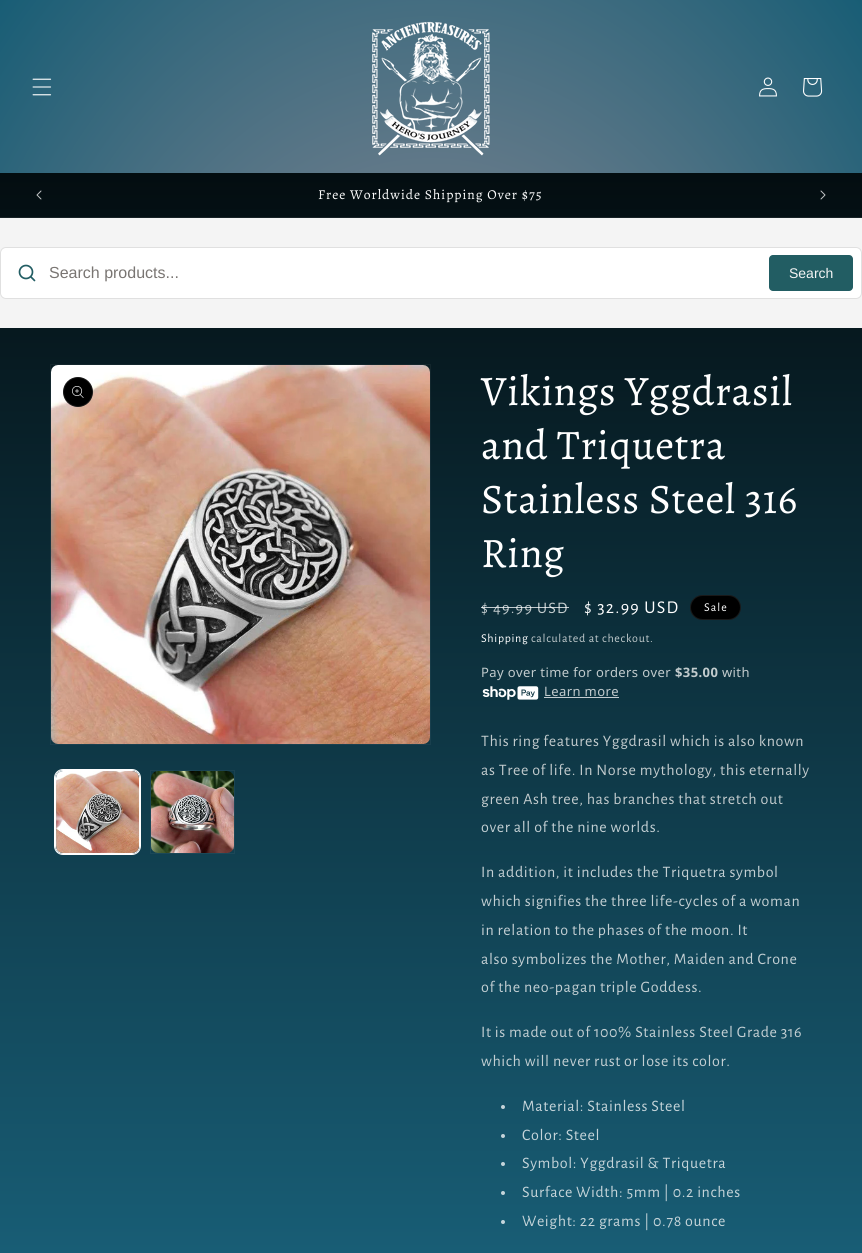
#include <cairo.h>
#include <math.h>
#include <stddef.h>


static void set_color(cairo_t *cr, unsigned color) {
    cairo_set_source_rgb(cr, (color >> 16) / 255.0, (color >> 8 & 255) / 255.0, (color & 255) / 255.0);
}

static void draw_text(cairo_t *cr, double x, double y, const char *s, const char *family, double size, int italic, int bold, unsigned color) {
    cairo_select_font_face(cr, family, italic ? CAIRO_FONT_SLANT_ITALIC : CAIRO_FONT_SLANT_NORMAL,
        bold ? CAIRO_FONT_WEIGHT_BOLD : CAIRO_FONT_WEIGHT_NORMAL);
    cairo_set_font_size(cr, size);
    set_color(cr, color);
    cairo_move_to(cr, x, y);
    cairo_show_text(cr, s);
}

static void draw_spaced(cairo_t *cr, double x, double y, const char *s, double letter, double word) {
    cairo_move_to(cr, x, y);
    while (*s) {
        char ch[5] = {0};
        int n = 0;
        do ch[n++] = *s++; while ((*s & 0xC0) == 0x80);
        cairo_show_text(cr, ch);
        cairo_rel_move_to(cr, letter + word * (*ch == ' '), 0);
    }
}

static void fill_rect(cairo_t *cr, double x, double y, double w, double h, unsigned color) {
    set_color(cr, color);
    cairo_rectangle(cr, x, y, w, h);
    cairo_fill(cr);
}

static void rounded_rect(cairo_t *cr, double x, double y, double w, double h, double r) {
    cairo_new_sub_path(cr);
    cairo_arc(cr, x + w - r, y + h - r, r, 0, M_PI / 2);
    cairo_arc(cr, x + r, y + h - r, r, M_PI / 2, M_PI);
    cairo_arc(cr, x + r, y + r, r, M_PI, 1.5 * M_PI);
    cairo_arc(cr, x + w - r, y + r, r, 1.5 * M_PI, 2 * M_PI);
    cairo_close_path(cr);
}

static void draw_image(cairo_t *cr, const char *path, double x, double y, double w, double h) {
    cairo_surface_t *image = cairo_image_surface_create_from_png(path);
    cairo_save(cr);
    cairo_set_source_surface(cr, image, x, y);
    cairo_rectangle(cr, x, y, w, h);
    cairo_fill(cr);
    cairo_restore(cr);
    cairo_surface_destroy(image);
}

int main(void) {
    cairo_surface_t *surface = cairo_image_surface_create(CAIRO_FORMAT_RGB24, 862, 1253);
    cairo_t *cr = cairo_create(surface);
    cairo_font_options_t *options = cairo_font_options_create();
    cairo_font_options_set_hint_metrics(options, CAIRO_HINT_METRICS_OFF);
    cairo_font_options_set_hint_style(options, CAIRO_HINT_STYLE_NONE);
    cairo_set_font_options(cr, options);
    cairo_set_miter_limit(cr, 4);
    cairo_pattern_t *gradient;
    set_color(cr, 0xF4F4F4);
    cairo_paint(cr);
    gradient = cairo_pattern_create_radial(0, 0, 0, 0, 0, 1);
    cairo_pattern_set_matrix(gradient, &(cairo_matrix_t){1.0 / 610, 0, 0, 1.0 / 886, -1.0 * 431 / 610, -1.0 * 627 / 886});
    cairo_pattern_add_color_stop_rgba(gradient, 0.5, 0.388, 0.475, 0.537, 1);
    cairo_pattern_add_color_stop_rgba(gradient, 1, 0.094, 0.365, 0.459, 1);
    cairo_set_source(cr, gradient);
    cairo_pattern_destroy(gradient);
    cairo_rectangle(cr, 0, 0, 862, 173);
    cairo_fill(cr);
    draw_image(cr, "assets/img1.png", 32, 78, 20, 18);
    draw_image(cr, "assets/img2.png", 372, 21, 118, 135);
    draw_image(cr, "assets/img3.png", 759, 77, 18, 20);
    draw_image(cr, "assets/img4.png", 803, 78, 20, 19);
    gradient = cairo_pattern_create_linear(431, 0, 431, 1253);
    cairo_pattern_add_color_stop_rgba(gradient, 0, 0, 0, 0, 1);
    cairo_pattern_add_color_stop_rgba(gradient, 1, 0.094, 0.365, 0.459, 1);
    cairo_set_source(cr, gradient);
    cairo_pattern_destroy(gradient);
    cairo_rectangle(cr, 0, 173, 862, 44);
    cairo_fill(cr);
    fill_rect(cr, 0, 217, 862, 1, 0x182327);
    draw_image(cr, "assets/img5.png", 36, 190, 6, 10);
    cairo_select_font_face(cr, "Alegreya", CAIRO_FONT_SLANT_NORMAL, CAIRO_FONT_WEIGHT_NORMAL);
    cairo_set_font_size(cr, 13.6);
    set_color(cr, 0xFFFFFF);
    draw_spaced(cr, 318, 199, "Free Worldwide Shipping Over $75", 1, 0);
    draw_image(cr, "assets/img6.png", 820, 190, 6, 10);
    rounded_rect(cr, 0.5, 247.5, 861, 51, 5.5);
    cairo_fill_preserve(cr);
    set_color(cr, 0xE0E0E0);
    cairo_set_line_width(cr, 1);
    cairo_stroke(cr);
    cairo_arc(cr, 26, 272, 6.5, 0, 2 * M_PI);
    set_color(cr, 0x225D63);
    cairo_set_line_width(cr, 1.7);
    cairo_stroke(cr);
    cairo_new_path(cr);
    cairo_move_to(cr, 34.5, 280.5);
    cairo_line_to(cr, 31, 277);
    cairo_set_line_cap(cr, CAIRO_LINE_CAP_ROUND);
    cairo_set_line_join(cr, CAIRO_LINE_JOIN_ROUND);
    cairo_stroke(cr);
    draw_text(cr, 49, 278, "Search products...", "Liberation Sans", 16, 0, 0, 0x797572);
    set_color(cr, 0x225D63);
    rounded_rect(cr, 769, 255, 84, 36, 4);
    cairo_fill(cr);
    draw_text(cr, 789, 278, "Search", "Liberation Sans", 14, 0, 0, 0xF4F4F4);
    gradient = cairo_pattern_create_linear(431, 0, 431, 1253);
    cairo_pattern_add_color_stop_rgba(gradient, 0, 0, 0, 0, 1);
    cairo_pattern_add_color_stop_rgba(gradient, 1, 0.094, 0.365, 0.459, 1);
    cairo_set_source(cr, gradient);
    cairo_pattern_destroy(gradient);
    cairo_rectangle(cr, 0, 328, 862, 925);
    cairo_fill(cr);
    cairo_rectangle(cr, 50.5, 364.5, 380, 380);
    cairo_set_source_rgba(cr, 1, 1, 1, 0.05);
    cairo_set_line_width(cr, 1);
    cairo_set_line_cap(cr, CAIRO_LINE_CAP_BUTT);
    cairo_set_line_join(cr, CAIRO_LINE_JOIN_MITER);
    cairo_stroke(cr);
    draw_image(cr, "assets/img7.png", 51, 365, 379, 379);
    set_color(cr, 0x000000);
    cairo_arc(cr, 78, 392, 15, 0, 2 * M_PI);
    cairo_fill(cr);
    cairo_arc(cr, 78, 392, 14.5, 0, 2 * M_PI);
    cairo_set_source_rgba(cr, 1, 1, 1, 0.1);
    cairo_stroke(cr);
    draw_image(cr, "assets/img8.png", 72, 386, 12, 12);
    rounded_rect(cr, 54.5, 769.5, 86, 85, 8.5);
    set_color(cr, 0xFFFFFF);
    cairo_stroke(cr);
    rounded_rect(cr, 55.5, 770.5, 84, 83, 7.5);
    cairo_stroke(cr);
    draw_image(cr, "assets/img9.png", 56, 771, 83, 82);
    cairo_rectangle(cr, 150.5, 770.5, 84, 83);
    cairo_set_source_rgba(cr, 1, 1, 1, 0.05);
    cairo_stroke(cr);
    draw_image(cr, "assets/img10.png", 151, 771, 83, 82);
    cairo_select_font_face(cr, "Alegreya", CAIRO_FONT_SLANT_NORMAL, CAIRO_FONT_WEIGHT_NORMAL);
    cairo_set_font_size(cr, 42);
    set_color(cr, 0xFFFFFF);
    draw_spaced(cr, 481, 405, "Vikings Yggdrasil", 0.6, 0);
    draw_spaced(cr, 481, 459, "and Triquetra", 0.6, 0);
    draw_spaced(cr, 481, 513, "Stainless Steel 316", 0.6, 0);
    draw_spaced(cr, 481, 567, "Ring", 0.6, 0);
    cairo_select_font_face(cr, "Alegreya Sans", CAIRO_FONT_SLANT_NORMAL, CAIRO_FONT_WEIGHT_NORMAL);
    cairo_set_font_size(cr, 16);
    set_color(cr, 0xC2CBCD);
    draw_spaced(cr, 481, 613, "$ 49.99 USD", 1.25, 0);
    cairo_set_source_rgba(cr, 1, 1, 1, 0.75);
    cairo_rectangle(cr, 481, 607, 88, 1);
    cairo_fill(cr);
    cairo_set_font_size(cr, 18);
    set_color(cr, 0xFFFFFF);
    draw_spaced(cr, 584, 613, "$ 32.99 USD", 1.25, 0);
    set_color(cr, 0x000000);
    rounded_rect(cr, 690, 595, 51, 25, 12.5);
    cairo_fill(cr);
    rounded_rect(cr, 690.5, 595.5, 50, 24, 12);
    cairo_set_source_rgba(cr, 1, 1, 1, 0.1);
    cairo_stroke(cr);
    cairo_set_font_size(cr, 12);
    set_color(cr, 0xFFFFFF);
    draw_spaced(cr, 704, 611, "Sale", 1, 0);
    draw_spaced(cr, 481, 642, "Shipping", 0.7, 0);
    set_color(cr, 0xC2CBCD);
    draw_spaced(cr, 531, 642, "calculated at checkout.", 0.7, 0);
    cairo_select_font_face(cr, "Noto Sans", CAIRO_FONT_SLANT_NORMAL, CAIRO_FONT_WEIGHT_NORMAL);
    cairo_set_font_size(cr, 13);
    draw_spaced(cr, 481, 677, "Pay over time for orders over", 0.4, 0);
    cairo_select_font_face(cr, "Noto Sans", CAIRO_FONT_SLANT_NORMAL, CAIRO_FONT_WEIGHT_BOLD);
    draw_spaced(cr, 675, 677, "$35.00", 0.4, 0);
    cairo_select_font_face(cr, "Noto Sans", CAIRO_FONT_SLANT_NORMAL, CAIRO_FONT_WEIGHT_NORMAL);
    draw_spaced(cr, 722, 677, "with", 0.4, 0);
    draw_image(cr, "assets/img11.png", 482, 686, 57, 14);
    draw_spaced(cr, 544, 696, "Learn more", 0.4, 0);
    fill_rect(cr, 544, 697, 75, 1, 0xC3CCD0);
    cairo_select_font_face(cr, "Alegreya Sans", CAIRO_FONT_SLANT_NORMAL, CAIRO_FONT_WEIGHT_NORMAL);
    cairo_set_font_size(cr, 16);
    set_color(cr, 0xC2CBCD);
    draw_spaced(cr, 481, 746, "This ring features Yggdrasil which is also known", 0.6, 0);
    draw_spaced(cr, 481, 775, "as Tree of life. In Norse mythology, this eternally", 0.6, 0);
    draw_spaced(cr, 481, 804, "green Ash tree, has branches that stretch out", 0.6, 0);
    set_color(cr, 0xC3CFD3);
    draw_spaced(cr, 481, 832, "over all of the nine worlds.", 0.6, 0);
    draw_spaced(cr, 481, 877, "In addition, it includes the Triquetra symbol", 0.6, 0);
    draw_spaced(cr, 481, 906, "which signifies the three life-cycles of a woman", 0.6, 0);
    draw_spaced(cr, 481, 935, "in relation to the phases of the moon. It", 0.6, 0);
    draw_spaced(cr, 481, 964, "also symbolizes the Mother, Maiden and Crone", 0.6, 0);
    draw_spaced(cr, 481, 992, "of the neo-pagan triple Goddess.", 0.6, 0);
    draw_spaced(cr, 481, 1037, "It is made out of 100% Stainless Steel Grade 316", 0.6, 0);
    draw_spaced(cr, 481, 1066, "which will never rust or lose its color.", 0.6, 0);
    set_color(cr, 0xC5D4D9);
    cairo_new_path(cr);
    cairo_arc(cr, 503, 1107, 2, 0, 2 * M_PI);
    cairo_fill(cr);
    draw_spaced(cr, 522, 1111, "Material: Stainless Steel", 0.6, 0);
    set_color(cr, 0xC5D4DA);
    cairo_new_path(cr);
    cairo_arc(cr, 503, 1136, 2, 0, 2 * M_PI);
    cairo_fill(cr);
    set_color(cr, 0xC5D4D9);
    draw_spaced(cr, 522, 1140, "Color: Steel", 0.6, 0);
    set_color(cr, 0xC5D5DB);
    cairo_new_path(cr);
    cairo_arc(cr, 503, 1164, 2, 0, 2 * M_PI);
    cairo_fill(cr);
    set_color(cr, 0xC5D4D9);
    draw_spaced(cr, 522, 1168, "Symbol: Yggdrasil & Triquetra", 0.6, 0);
    set_color(cr, 0xC5D5DB);
    cairo_new_path(cr);
    cairo_arc(cr, 503, 1193, 2, 0, 2 * M_PI);
    cairo_fill(cr);
    set_color(cr, 0xC5D4D9);
    draw_spaced(cr, 522, 1197, "Surface Width: 5mm | 0.2 inches", 0.6, 0);
    set_color(cr, 0xC5D6DC);
    cairo_new_path(cr);
    cairo_arc(cr, 503, 1222, 2, 0, 2 * M_PI);
    cairo_fill(cr);
    set_color(cr, 0xC5D4D9);
    draw_spaced(cr, 522, 1226, "Weight: 22 grams | 0.78 ounce", 0.6, 0);
    cairo_surface_write_to_png(surface, "output.png");
    cairo_font_options_destroy(options);
    cairo_destroy(cr);
    cairo_surface_destroy(surface);
    return 0;
}
